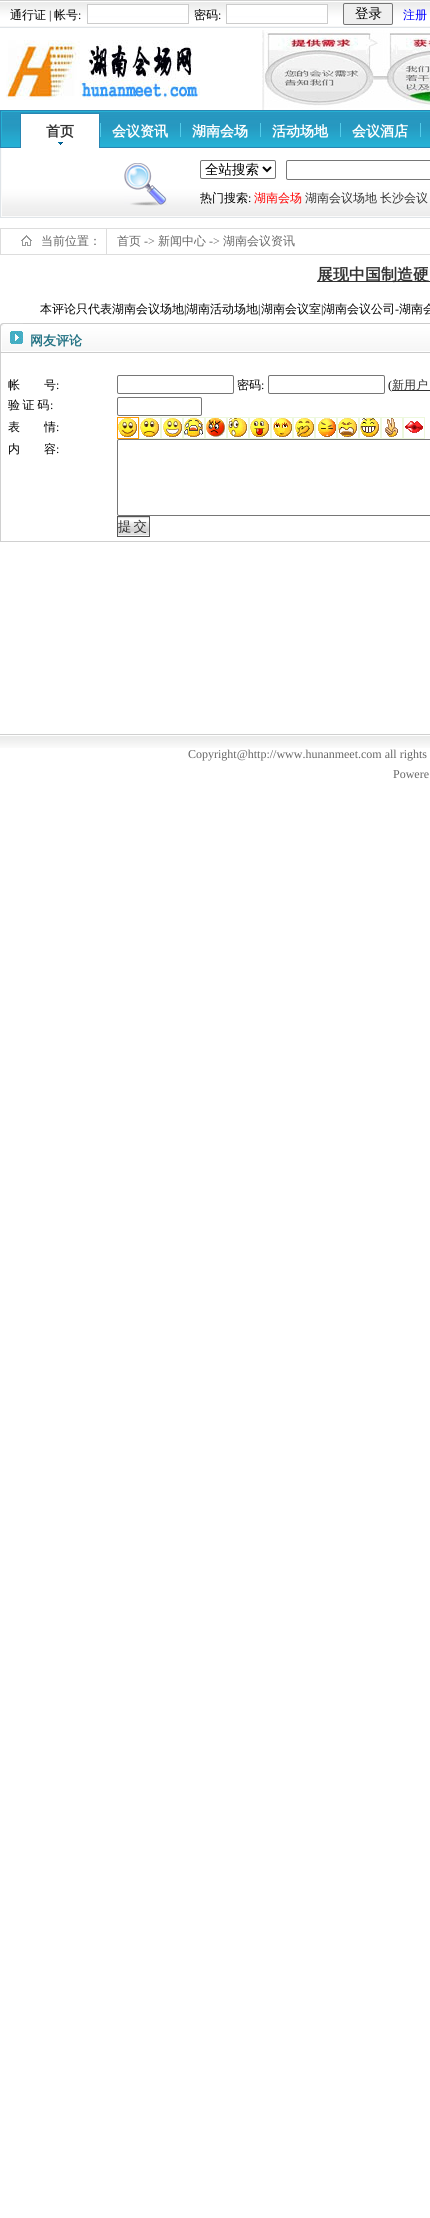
#include <cairo.h>
#include <math.h>
#include <stddef.h>


static void set_color(cairo_t *cr, unsigned color) {
    cairo_set_source_rgb(cr, (color >> 16) / 255.0, (color >> 8 & 255) / 255.0, (color & 255) / 255.0);
}

static void draw_text(cairo_t *cr, double x, double y, const char *s, const char *family, double size, int italic, int bold, unsigned color) {
    cairo_select_font_face(cr, family, italic ? CAIRO_FONT_SLANT_ITALIC : CAIRO_FONT_SLANT_NORMAL,
        bold ? CAIRO_FONT_WEIGHT_BOLD : CAIRO_FONT_WEIGHT_NORMAL);
    cairo_set_font_size(cr, size);
    set_color(cr, color);
    cairo_move_to(cr, x, y);
    cairo_show_text(cr, s);
}

static void draw_spaced(cairo_t *cr, double x, double y, const char *s, double letter, double word) {
    cairo_move_to(cr, x, y);
    while (*s) {
        char ch[5] = {0};
        int n = 0;
        do ch[n++] = *s++; while ((*s & 0xC0) == 0x80);
        cairo_show_text(cr, ch);
        cairo_rel_move_to(cr, letter + word * (*ch == ' '), 0);
    }
}

static void fill_rect(cairo_t *cr, double x, double y, double w, double h, unsigned color) {
    set_color(cr, color);
    cairo_rectangle(cr, x, y, w, h);
    cairo_fill(cr);
}

static void rounded_rect(cairo_t *cr, double x, double y, double w, double h, double r) {
    cairo_new_sub_path(cr);
    cairo_arc(cr, x + w - r, y + h - r, r, 0, M_PI / 2);
    cairo_arc(cr, x + r, y + h - r, r, M_PI / 2, M_PI);
    cairo_arc(cr, x + r, y + r, r, M_PI, 1.5 * M_PI);
    cairo_arc(cr, x + w - r, y + r, r, 1.5 * M_PI, 2 * M_PI);
    cairo_close_path(cr);
}

static void draw_image(cairo_t *cr, const char *path, double x, double y, double w, double h) {
    cairo_surface_t *image = cairo_image_surface_create_from_png(path);
    cairo_save(cr);
    cairo_set_source_surface(cr, image, x, y);
    cairo_rectangle(cr, x, y, w, h);
    cairo_fill(cr);
    cairo_restore(cr);
    cairo_surface_destroy(image);
}

int main(void) {
    cairo_surface_t *surface = cairo_image_surface_create(CAIRO_FORMAT_RGB24, 430, 2218);
    cairo_t *cr = cairo_create(surface);
    cairo_font_options_t *options = cairo_font_options_create();
    cairo_font_options_set_hint_metrics(options, CAIRO_HINT_METRICS_OFF);
    cairo_font_options_set_hint_style(options, CAIRO_HINT_STYLE_NONE);
    cairo_set_font_options(cr, options);
    cairo_set_miter_limit(cr, 4);
    set_color(cr, 0xFFFFFF);
    cairo_paint(cr);
    draw_image(cr, "assets/img1.png", 0, 0, 430, 28);
    draw_text(cr, 10, 19, "通行证", "WenQuanYi Zen Hei Medium", 12, 0, 0, 0x000000);
    draw_text(cr, 49, 19, "|", "Liberation Serif", 12, 0, 0, 0x000000);
    draw_text(cr, 54, 19, "帐号", "WenQuanYi Zen Hei Medium", 12, 0, 0, 0x000000);
    draw_text(cr, 78, 19, ":", "Liberation Serif", 12, 0, 0, 0x000000);
    fill_rect(cr, 88, 5, 100, 11, 0xFFFFFF);
    cairo_rectangle(cr, 87.5, 4.5, 101, 19);
    set_color(cr, 0xCCCCCC);
    cairo_set_line_width(cr, 1);
    cairo_stroke(cr);
    draw_text(cr, 194, 19, "密码", "WenQuanYi Zen Hei Medium", 12, 0, 0, 0x000000);
    draw_text(cr, 218, 19, ":", "Liberation Serif", 12, 0, 0, 0x000000);
    fill_rect(cr, 227, 5, 100, 11, 0xFFFFFF);
    cairo_rectangle(cr, 226.5, 4.5, 101, 19);
    set_color(cr, 0xCCCCCC);
    cairo_stroke(cr);
    set_color(cr, 0xEFEFEF);
    rounded_rect(cr, 343.5, 3.5, 49, 21, 1.5);
    cairo_fill_preserve(cr);
    set_color(cr, 0x767676);
    cairo_stroke(cr);
    draw_text(cr, 355, 18, "登录", "WenQuanYi Zen Hei Medium", 13.5, 0, 0, 0x000000);
    draw_text(cr, 403, 19, "注册", "WenQuanYi Zen Hei Medium", 12, 0, 0, 0x0000FF);
    draw_image(cr, "assets/img2.png", 262, 30, 168, 80);
    draw_image(cr, "assets/img3.png", 6, 40, 194, 60);
    draw_image(cr, "assets/img4.png", 0, 110, 430, 38);
    draw_image(cr, "assets/img5.png", 20, 113, 80, 35);
    draw_text(cr, 46, 136, "首页", "WenQuanYi Zen Hei", 14, 0, 1, 0x333333);
    fill_rect(cr, 100, 123, 1, 14, 0x52CCEA);
    draw_text(cr, 112, 136, "会议资讯", "WenQuanYi Zen Hei", 14, 0, 1, 0xFFFFFF);
    fill_rect(cr, 180, 123, 1, 14, 0x52CCEA);
    draw_text(cr, 192, 136, "湖南会场", "WenQuanYi Zen Hei", 14, 0, 1, 0xFFFFFF);
    fill_rect(cr, 260, 123, 1, 14, 0x52CCEA);
    draw_text(cr, 272, 136, "活动场地", "WenQuanYi Zen Hei", 14, 0, 1, 0xFFFFFF);
    fill_rect(cr, 340, 123, 1, 14, 0x52CCEA);
    draw_text(cr, 352, 136, "会议酒店", "WenQuanYi Zen Hei", 14, 0, 1, 0xFFFFFF);
    fill_rect(cr, 420, 123, 1, 14, 0x52CCEA);
    draw_image(cr, "assets/img6.png", 0, 148, 430, 70);
    draw_image(cr, "assets/img7.png", 124, 163, 43, 43);
    rounded_rect(cr, 200.5, 160.5, 75, 18, 1.5);
    set_color(cr, 0x767676);
    cairo_stroke(cr);
    cairo_new_path(cr);
    cairo_move_to(cr, 263, 167);
    cairo_line_to(cr, 267, 171);
    cairo_line_to(cr, 271, 167);
    set_color(cr, 0x000000);
    cairo_set_line_width(cr, 2);
    cairo_stroke(cr);
    draw_text(cr, 205, 174, "全站搜索", "WenQuanYi Zen Hei Medium", 13.5, 0, 0, 0x000000);
    rounded_rect(cr, 286.5, 160.5, 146, 19, 1.5);
    set_color(cr, 0x767676);
    cairo_set_line_width(cr, 1);
    cairo_stroke(cr);
    draw_text(cr, 200, 202, "热门搜索", "WenQuanYi Zen Hei Medium", 12, 0, 0, 0x000000);
    draw_text(cr, 248, 202, ":", "Liberation Serif", 12, 0, 0, 0x000000);
    draw_text(cr, 254, 202, "湖南会场", "WenQuanYi Zen Hei Medium", 12, 0, 0, 0xFF0000);
    draw_text(cr, 305, 202, "湖南会议场地", "WenQuanYi Zen Hei Medium", 12, 0, 0, 0x333333);
    draw_text(cr, 380, 202, "长沙会议", "WenQuanYi Zen Hei Medium", 12, 0, 0, 0x333333);
    cairo_rectangle(cr, 0.5, 228.5, 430, 26);
    set_color(cr, 0xDDDDDD);
    cairo_stroke(cr);
    draw_image(cr, "assets/img8.png", 21, 235, 11, 11);
    fill_rect(cr, 106, 229, 1, 25, 0xDDDDDD);
    draw_text(cr, 41, 245, "当前位置：", "WenQuanYi Zen Hei Medium", 12, 0, 0, 0x666666);
    draw_text(cr, 117, 245, "首页", "WenQuanYi Zen Hei Medium", 12, 0, 0, 0x666666);
    draw_text(cr, 144, 245, "->", "Liberation Serif", 12, 0, 0, 0x666666);
    draw_text(cr, 158, 245, "新闻中心", "WenQuanYi Zen Hei Medium", 12, 0, 0, 0x666666);
    draw_text(cr, 209, 245, "->", "Liberation Serif", 12, 0, 0, 0x666666);
    draw_text(cr, 223, 245, "湖南会议资讯", "WenQuanYi Zen Hei Medium", 12, 0, 0, 0x666666);
    fill_rect(cr, 317, 281, 113, 1, 0x333333);
    draw_text(cr, 317, 280, "展现中国制造硬", "WenQuanYi Zen Hei", 16, 0, 1, 0x333333);
    draw_text(cr, 40, 313, "本评论只代表湖南会议场地", "WenQuanYi Zen Hei Medium", 12, 0, 0, 0x000000);
    draw_text(cr, 184, 313, "|", "Liberation Serif", 12, 0, 0, 0x000000);
    draw_text(cr, 186, 313, "湖南活动场地", "WenQuanYi Zen Hei Medium", 12, 0, 0, 0x000000);
    draw_text(cr, 258, 313, "|", "Liberation Serif", 12, 0, 0, 0x000000);
    draw_text(cr, 261, 313, "湖南会议室", "WenQuanYi Zen Hei Medium", 12, 0, 0, 0x000000);
    draw_text(cr, 321, 313, "|", "Liberation Serif", 12, 0, 0, 0x000000);
    draw_text(cr, 323, 313, "湖南会议公司", "WenQuanYi Zen Hei Medium", 12, 0, 0, 0x000000);
    draw_text(cr, 395, 313, "-", "Liberation Serif", 12, 0, 0, 0x000000);
    draw_text(cr, 399, 313, "湖南会", "WenQuanYi Zen Hei Medium", 12, 0, 0, 0x000000);
    fill_rect(cr, 0, 323, 430, 30, 0xCCCCCC);
    draw_image(cr, "assets/img9.png", 23, 324, 407, 28);
    draw_image(cr, "assets/img10.png", 0, 323, 23, 29);
    draw_text(cr, 30, 345, "网友评论", "WenQuanYi Zen Hei", 13, 0, 1, 0x247384);
    fill_rect(cr, 0, 541, 430, 1, 0xD0D0D0);
    fill_rect(cr, 0, 353, 1, 189, 0xD0D0D0);
    draw_text(cr, 8, 389, "帐　　号", "WenQuanYi Zen Hei Medium", 12, 0, 0, 0x000000);
    draw_text(cr, 56, 389, ":", "Liberation Serif", 12, 0, 0, 0x000000);
    rounded_rect(cr, 117.5, 375.5, 116, 18, 1.5);
    set_color(cr, 0x767676);
    cairo_stroke(cr);
    draw_text(cr, 237, 389, "密码", "WenQuanYi Zen Hei Medium", 12, 0, 0, 0x000000);
    draw_text(cr, 261, 389, ":", "Liberation Serif", 12, 0, 0, 0x000000);
    rounded_rect(cr, 268.5, 375.5, 116, 18, 1.5);
    set_color(cr, 0x767676);
    cairo_stroke(cr);
    draw_text(cr, 388, 389, "(", "Liberation Serif", 12, 0, 0, 0x000000);
    fill_rect(cr, 392, 390, 38, 1, 0x333333);
    draw_text(cr, 392, 389, "新用户", "WenQuanYi Zen Hei Medium", 12, 0, 0, 0x333333);
    set_color(cr, 0x000000);
    draw_spaced(cr, 8, 409, "验 证 码", 0, -1);
    draw_text(cr, 50, 409, ":", "Liberation Serif", 12, 0, 0, 0x000000);
    rounded_rect(cr, 117.5, 397.5, 84, 18, 1.5);
    set_color(cr, 0x767676);
    cairo_stroke(cr);
    draw_text(cr, 8, 431, "表　　情", "WenQuanYi Zen Hei Medium", 12, 0, 0, 0x000000);
    draw_text(cr, 56, 431, ":", "Liberation Serif", 12, 0, 0, 0x000000);
    cairo_rectangle(cr, 117.5, 417.5, 21, 21);
    set_color(cr, 0xFF9900);
    cairo_stroke(cr);
    draw_image(cr, "assets/img11.png", 118, 418, 19, 19);
    cairo_rectangle(cr, 139.5, 417.5, 21, 21);
    set_color(cr, 0xEDF8DD);
    cairo_stroke(cr);
    draw_image(cr, "assets/img12.png", 140, 418, 19, 19);
    cairo_rectangle(cr, 161.5, 417.5, 21, 21);
    cairo_stroke(cr);
    draw_image(cr, "assets/img13.png", 163, 418, 19, 19);
    cairo_rectangle(cr, 183.5, 417.5, 21, 21);
    cairo_stroke(cr);
    draw_image(cr, "assets/img14.png", 184, 418, 19, 19);
    cairo_rectangle(cr, 205.5, 417.5, 21, 21);
    cairo_stroke(cr);
    draw_image(cr, "assets/img15.png", 206, 418, 19, 19);
    cairo_rectangle(cr, 227.5, 417.5, 21, 21);
    cairo_stroke(cr);
    draw_image(cr, "assets/img16.png", 228, 418, 19, 19);
    cairo_rectangle(cr, 249.5, 417.5, 21, 21);
    cairo_stroke(cr);
    draw_image(cr, "assets/img17.png", 250, 418, 19, 19);
    cairo_rectangle(cr, 271.5, 417.5, 21, 21);
    cairo_stroke(cr);
    draw_image(cr, "assets/img18.png", 273, 418, 19, 19);
    cairo_rectangle(cr, 293.5, 417.5, 21, 21);
    cairo_stroke(cr);
    draw_image(cr, "assets/img19.png", 295, 418, 19, 19);
    cairo_rectangle(cr, 315.5, 417.5, 21, 21);
    cairo_stroke(cr);
    draw_image(cr, "assets/img20.png", 318, 418, 18, 19);
    cairo_rectangle(cr, 337.5, 417.5, 21, 21);
    cairo_stroke(cr);
    draw_image(cr, "assets/img21.png", 338, 418, 19, 19);
    cairo_rectangle(cr, 359.5, 417.5, 21, 21);
    cairo_stroke(cr);
    draw_image(cr, "assets/img22.png", 360, 418, 19, 19);
    cairo_rectangle(cr, 381.5, 417.5, 21, 21);
    cairo_stroke(cr);
    draw_image(cr, "assets/img23.png", 385, 418, 13, 19);
    cairo_rectangle(cr, 403.5, 417.5, 21, 21);
    cairo_stroke(cr);
    draw_image(cr, "assets/img24.png", 405, 421, 18, 12);
    draw_text(cr, 8, 453, "内　　容", "WenQuanYi Zen Hei Medium", 12, 0, 0, 0x000000);
    draw_text(cr, 56, 453, ":", "Liberation Serif", 12, 0, 0, 0x000000);
    rounded_rect(cr, 117.5, 439.5, 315, 76, 1.5);
    set_color(cr, 0x767676);
    cairo_stroke(cr);
    draw_image(cr, "assets/img25.png", 118, 517, 31, 19);
    cairo_rectangle(cr, 117.5, 516.5, 32, 20);
    set_color(cr, 0x555555);
    cairo_stroke(cr);
    cairo_select_font_face(cr, "WenQuanYi Zen Hei Medium", CAIRO_FONT_SLANT_NORMAL, CAIRO_FONT_WEIGHT_NORMAL);
    cairo_set_font_size(cr, 13.5);
    set_color(cr, 0x333333);
    draw_spaced(cr, 118, 531, "提交", 2, 0);
    draw_image(cr, "assets/img26.png", 0, 734, 430, 14);
    draw_text(cr, 188, 758, "Copyright@http://www.hunanmeet.com all rights", "Liberation Serif", 12, 0, 0, 0x666666);
    draw_text(cr, 393, 778, "Powere", "Liberation Serif", 12, 0, 0, 0x666666);
    cairo_surface_write_to_png(surface, "output.png");
    cairo_font_options_destroy(options);
    cairo_destroy(cr);
    cairo_surface_destroy(surface);
    return 0;
}
